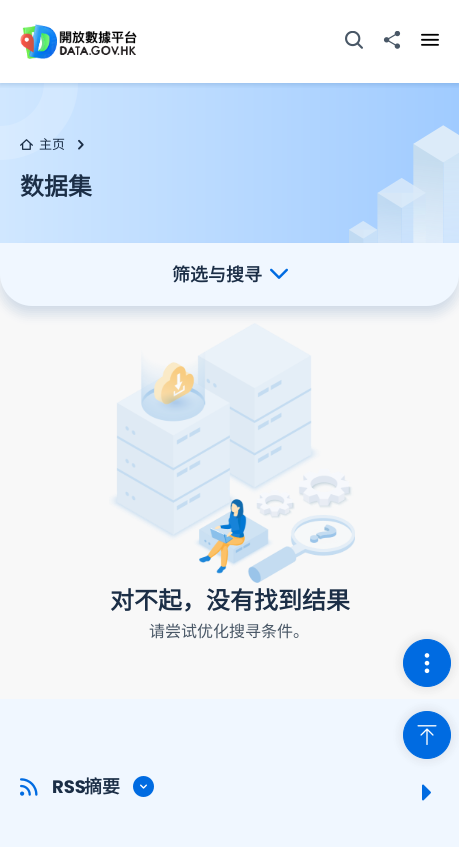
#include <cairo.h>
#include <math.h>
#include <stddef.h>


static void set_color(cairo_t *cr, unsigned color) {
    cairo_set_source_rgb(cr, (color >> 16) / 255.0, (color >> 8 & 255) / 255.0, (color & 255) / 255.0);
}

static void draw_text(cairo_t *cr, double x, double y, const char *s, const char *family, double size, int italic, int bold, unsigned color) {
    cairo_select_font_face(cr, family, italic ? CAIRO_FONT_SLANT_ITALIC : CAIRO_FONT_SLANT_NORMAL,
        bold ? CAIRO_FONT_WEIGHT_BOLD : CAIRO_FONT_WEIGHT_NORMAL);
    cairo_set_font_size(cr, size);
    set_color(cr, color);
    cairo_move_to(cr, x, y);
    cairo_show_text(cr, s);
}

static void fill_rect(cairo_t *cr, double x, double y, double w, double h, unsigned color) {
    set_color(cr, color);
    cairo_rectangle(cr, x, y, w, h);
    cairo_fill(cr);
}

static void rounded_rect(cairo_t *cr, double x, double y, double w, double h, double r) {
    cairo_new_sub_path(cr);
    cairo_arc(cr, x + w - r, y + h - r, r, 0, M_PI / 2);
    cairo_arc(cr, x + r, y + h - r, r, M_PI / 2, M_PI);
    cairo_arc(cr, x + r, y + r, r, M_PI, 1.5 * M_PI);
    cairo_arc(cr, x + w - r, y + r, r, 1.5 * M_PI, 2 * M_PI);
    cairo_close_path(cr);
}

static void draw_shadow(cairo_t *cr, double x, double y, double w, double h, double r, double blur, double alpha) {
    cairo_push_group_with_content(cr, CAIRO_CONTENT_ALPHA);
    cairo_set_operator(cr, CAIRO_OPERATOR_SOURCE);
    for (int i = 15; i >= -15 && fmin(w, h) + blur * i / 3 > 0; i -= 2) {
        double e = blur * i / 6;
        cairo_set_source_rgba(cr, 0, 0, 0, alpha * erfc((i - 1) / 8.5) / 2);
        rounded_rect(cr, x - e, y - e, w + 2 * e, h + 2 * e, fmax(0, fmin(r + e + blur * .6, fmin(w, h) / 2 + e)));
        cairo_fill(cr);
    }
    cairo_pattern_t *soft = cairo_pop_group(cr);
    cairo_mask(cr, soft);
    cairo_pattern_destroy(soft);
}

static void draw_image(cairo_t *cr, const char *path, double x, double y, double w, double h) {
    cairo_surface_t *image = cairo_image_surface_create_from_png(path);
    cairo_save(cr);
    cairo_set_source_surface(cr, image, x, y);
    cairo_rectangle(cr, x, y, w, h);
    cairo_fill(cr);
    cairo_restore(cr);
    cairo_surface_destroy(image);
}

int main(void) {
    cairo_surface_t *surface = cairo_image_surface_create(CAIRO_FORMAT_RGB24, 459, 847);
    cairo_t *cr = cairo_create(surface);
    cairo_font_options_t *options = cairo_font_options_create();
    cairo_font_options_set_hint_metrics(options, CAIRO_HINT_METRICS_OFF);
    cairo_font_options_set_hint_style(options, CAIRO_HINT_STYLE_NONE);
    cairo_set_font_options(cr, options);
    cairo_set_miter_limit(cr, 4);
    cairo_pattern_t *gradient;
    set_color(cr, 0xFFFFFF);
    cairo_paint(cr);
    gradient = cairo_pattern_create_linear(0, 168, 459, 168);
    cairo_pattern_add_color_stop_rgba(gradient, 0, 0.816, 0.906, 1, 1);
    cairo_pattern_add_color_stop_rgba(gradient, 1, 0.627, 0.796, 1, 1);
    cairo_set_source(cr, gradient);
    cairo_pattern_destroy(gradient);
    cairo_rectangle(cr, 0, 83, 459, 160);
    cairo_fill(cr);
    cairo_save(cr);
    cairo_rectangle(cr, 0, 83, 79, 77);
    cairo_clip(cr);
    gradient = cairo_pattern_create_linear(0, 5.9, 0, 63);
    cairo_pattern_add_color_stop_rgba(gradient, 0, 1, 1, 1, 0.4);
    cairo_pattern_add_color_stop_rgba(gradient, 1, 1, 1, 1, 0.16);
    cairo_set_source(cr, gradient);
    cairo_pattern_destroy(gradient);
    cairo_new_path(cr);
    cairo_move_to(cr, 0, 40);
    cairo_curve_to(cr, -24, 40, -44, 59, -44, 83);
    cairo_curve_to(cr, -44, 107, -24, 126, 0, 126);
    cairo_curve_to(cr, 24, 126, 44, 107, 44, 83);
    cairo_curve_to(cr, 44, 59, 24, 40, 0, 40);
    cairo_move_to(cr, 0, 6);
    cairo_curve_to(cr, 43, 6, 78, 40, 78, 83);
    cairo_curve_to(cr, 78, 126, 43, 160, 0, 160);
    cairo_curve_to(cr, -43, 160, -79, 126, -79, 83);
    cairo_curve_to(cr, -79, 40, -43, 6, 0, 6);
    cairo_close_path(cr);
    cairo_fill(cr);
    cairo_restore(cr);
    cairo_save(cr);
    cairo_rectangle(cr, 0, 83, 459, 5);
    cairo_clip(cr);
    set_color(cr, 0x003F88);
    draw_shadow(cr, 0, 2, 459, 83, 0, 2.5, 0.16);
    cairo_restore(cr);
    draw_image(cr, "assets/img1.png", 20, 24, 117, 35);
    draw_image(cr, "assets/img2.png", 345, 31, 18, 18);
    draw_image(cr, "assets/img3.png", 383, 31, 18, 18);
    draw_image(cr, "assets/img4.png", 421, 33, 18, 13);
    fill_rect(cr, 0, 274, 459, 425, 0xF8F8F8);
    draw_image(cr, "assets/img5.png", 349, 125, 110, 118);
    draw_image(cr, "assets/img6.png", 20, 139, 13, 11);
    draw_text(cr, 39, 149, "主页", "Noto Sans CJK SC", 13, 0, 0, 0x1B2E46);
    draw_image(cr, "assets/img7.png", 78, 139, 6, 11);
    draw_text(cr, 20, 195, "数据集", "Noto Sans CJK SC", 24, 0, 1, 0x1B2E46);
    draw_image(cr, "assets/img9.png", 109, 323, 246, 260);
    set_color(cr, 0x003F88);
    draw_shadow(cr, 0, 251, 459, 63, 32, 6, 0.16);
    set_color(cr, 0xF0F7FF);
    cairo_new_path(cr);
    cairo_move_to(cr, 0, 243);
    cairo_line_to(cr, 459, 243);
    cairo_line_to(cr, 459, 274);
    cairo_curve_to(cr, 459, 291.5, 444.5, 306, 427, 306);
    cairo_line_to(cr, 32, 306);
    cairo_curve_to(cr, 14.5, 306, 0, 291.5, 0, 274);
    cairo_close_path(cr);
    cairo_fill(cr);
    draw_text(cr, 172, 281, "筛选与搜寻", "Noto Sans CJK SC", 18, 0, 1, 0x1B2E46);
    draw_image(cr, "assets/img8.png", 270, 268, 18, 11);
    draw_text(cr, 110, 609, "对不起，没有找到结果", "Noto Sans CJK SC", 24, 0, 1, 0x1B2E46);
    draw_text(cr, 149, 637, "请尝试优化搜寻条件。", "Noto Sans CJK SC", 16, 0, 0, 0x495766);
    fill_rect(cr, 0, 699, 459, 148, 0xF0F7FF);
    draw_image(cr, "assets/img10.png", 20, 778, 18, 18);
    draw_text(cr, 52, 793, "RSS", "Poppins", 18, 0, 1, 0x1B2E46);
    draw_text(cr, 84, 793, "摘要", "Noto Sans CJK SC", 18, 0, 1, 0x1B2E46);
    set_color(cr, 0x006BE1);
    cairo_new_path(cr);
    cairo_arc(cr, 143.5, 786.5, 10.5, 0, 2 * M_PI);
    cairo_fill(cr);
    draw_image(cr, "assets/img11.png", 140, 784, 7, 5);
    set_color(cr, 0x444444);
    draw_shadow(cr, 399, 635, 56, 56, 28, 4, 0.08);
    set_color(cr, 0x006BE1);
    cairo_arc(cr, 427, 663, 23.5, 0, 2 * M_PI);
    cairo_fill_preserve(cr);
    cairo_set_line_width(cr, 1);
    cairo_stroke(cr);
    draw_image(cr, "assets/img12.png", 424, 653, 6, 21);
    set_color(cr, 0x444444);
    draw_shadow(cr, 399, 707, 56, 56, 28, 4, 0.08);
    set_color(cr, 0x006BE1);
    cairo_arc(cr, 427, 735, 23.5, 0, 2 * M_PI);
    cairo_fill_preserve(cr);
    cairo_stroke(cr);
    draw_image(cr, "assets/img13.png", 417, 725, 20, 20);
    draw_image(cr, "assets/img14.png", 422, 784, 9, 17);
    cairo_surface_write_to_png(surface, "output.png");
    cairo_font_options_destroy(options);
    cairo_destroy(cr);
    cairo_surface_destroy(surface);
    return 0;
}
